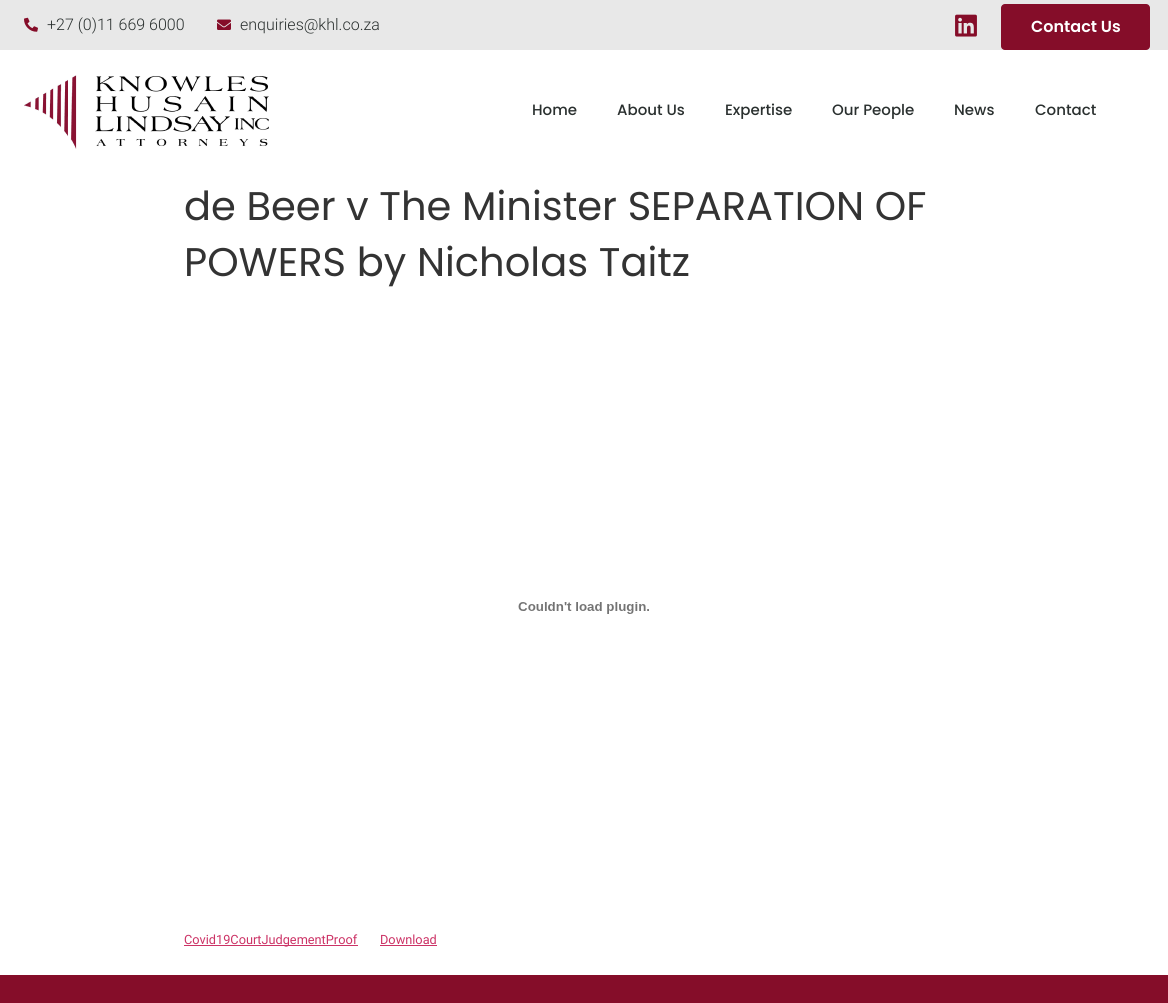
#include <cairo.h>
#include <math.h>
#include <stddef.h>


static void set_color(cairo_t *cr, unsigned color) {
    cairo_set_source_rgb(cr, (color >> 16) / 255.0, (color >> 8 & 255) / 255.0, (color & 255) / 255.0);
}

static void draw_text(cairo_t *cr, double x, double y, const char *s, const char *family, double size, int italic, int bold, unsigned color) {
    cairo_select_font_face(cr, family, italic ? CAIRO_FONT_SLANT_ITALIC : CAIRO_FONT_SLANT_NORMAL,
        bold ? CAIRO_FONT_WEIGHT_BOLD : CAIRO_FONT_WEIGHT_NORMAL);
    cairo_set_font_size(cr, size);
    set_color(cr, color);
    cairo_move_to(cr, x, y);
    cairo_show_text(cr, s);
}

static void fill_rect(cairo_t *cr, double x, double y, double w, double h, unsigned color) {
    set_color(cr, color);
    cairo_rectangle(cr, x, y, w, h);
    cairo_fill(cr);
}

static void rounded_rect(cairo_t *cr, double x, double y, double w, double h, double r) {
    cairo_new_sub_path(cr);
    cairo_arc(cr, x + w - r, y + h - r, r, 0, M_PI / 2);
    cairo_arc(cr, x + r, y + h - r, r, M_PI / 2, M_PI);
    cairo_arc(cr, x + r, y + r, r, M_PI, 1.5 * M_PI);
    cairo_arc(cr, x + w - r, y + r, r, 1.5 * M_PI, 2 * M_PI);
    cairo_close_path(cr);
}

static void draw_image(cairo_t *cr, const char *path, double x, double y, double w, double h) {
    cairo_surface_t *image = cairo_image_surface_create_from_png(path);
    cairo_save(cr);
    cairo_set_source_surface(cr, image, x, y);
    cairo_rectangle(cr, x, y, w, h);
    cairo_fill(cr);
    cairo_restore(cr);
    cairo_surface_destroy(image);
}

int main(void) {
    cairo_surface_t *surface = cairo_image_surface_create(CAIRO_FORMAT_RGB24, 1168, 1003);
    cairo_t *cr = cairo_create(surface);
    cairo_font_options_t *options = cairo_font_options_create();
    cairo_font_options_set_hint_metrics(options, CAIRO_HINT_METRICS_OFF);
    cairo_font_options_set_hint_style(options, CAIRO_HINT_STYLE_NONE);
    cairo_set_font_options(cr, options);
    cairo_set_miter_limit(cr, 4);
    set_color(cr, 0xFFFFFF);
    cairo_paint(cr);
    fill_rect(cr, 0, 0, 1168, 50, 0xE8E8E8);
    draw_image(cr, "assets/img1.png", 24, 17, 14, 15);
    draw_text(cr, 47, 30, "+27 (0)11 669 6000", "Roboto Light", 16, 0, 0, 0x2A302F);
    draw_image(cr, "assets/img2.png", 217, 19, 14, 11);
    draw_text(cr, 240, 30, "enquiries@khl.co.za", "Roboto Light", 16, 0, 0, 0x2A302F);
    draw_image(cr, "assets/img3.png", 955, 14, 22, 23);
    set_color(cr, 0x850D29);
    rounded_rect(cr, 1001, 4, 149, 46, 4);
    cairo_fill(cr);
    draw_text(cr, 1031, 32, "Contact Us", "Poppins SemiBold", 16, 0, 0, 0xFFFFFF);
    draw_image(cr, "assets/img4.png", 24, 75, 245, 74);
    draw_text(cr, 532, 115, "Home", "Poppins Medium", 15, 0, 0, 0x2A302F);
    draw_text(cr, 617, 115, "About Us", "Poppins Medium", 15, 0, 0, 0x2A302F);
    draw_text(cr, 725, 115, "Expertise", "Poppins Medium", 15, 0, 0, 0x2A302F);
    draw_text(cr, 832, 115, "Our People", "Poppins Medium", 15, 0, 0, 0x2A302F);
    draw_text(cr, 954, 115, "News", "Poppins Medium", 15, 0, 0, 0x2A302F);
    draw_text(cr, 1035, 115, "Contact", "Poppins Medium", 15, 0, 0, 0x2A302F);
    draw_text(cr, 184, 220, "de Beer v The Minister SEPARATION OF", "Poppins", 40, 0, 0, 0x333333);
    draw_text(cr, 184, 276, "POWERS by Nicholas Taitz", "Poppins", 40, 0, 0, 0x333333);
    draw_image(cr, "assets/img5.png", 518, 602, 131, 12);
    fill_rect(cr, 184, 945, 174, 1, 0xCC3366);
    draw_text(cr, 184, 944, "Covid19CourtJudgementProof", "Roboto", 12.75, 0, 0, 0xCC3366);
    draw_text(cr, 380, 944, "Download", "Roboto", 12.75, 0, 0, 0xCC3366);
    fill_rect(cr, 380, 945, 57, 1, 0xCC3366);
    fill_rect(cr, 0, 975, 1168, 28, 0x850D29);
    cairo_surface_write_to_png(surface, "output.png");
    cairo_font_options_destroy(options);
    cairo_destroy(cr);
    cairo_surface_destroy(surface);
    return 0;
}
